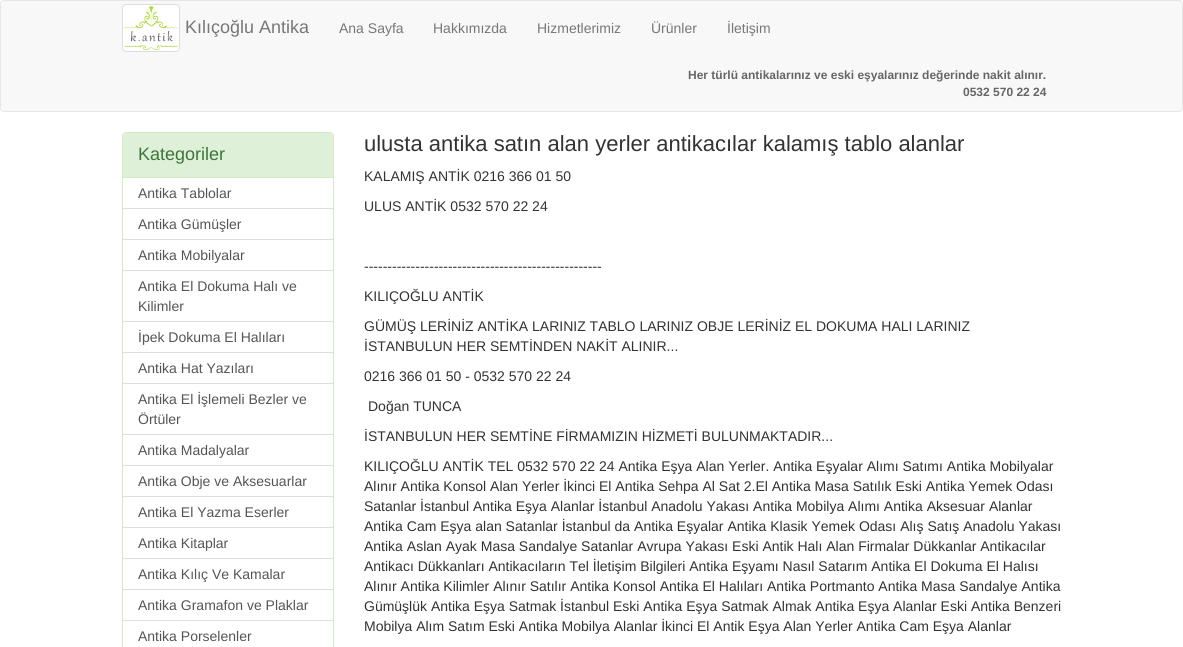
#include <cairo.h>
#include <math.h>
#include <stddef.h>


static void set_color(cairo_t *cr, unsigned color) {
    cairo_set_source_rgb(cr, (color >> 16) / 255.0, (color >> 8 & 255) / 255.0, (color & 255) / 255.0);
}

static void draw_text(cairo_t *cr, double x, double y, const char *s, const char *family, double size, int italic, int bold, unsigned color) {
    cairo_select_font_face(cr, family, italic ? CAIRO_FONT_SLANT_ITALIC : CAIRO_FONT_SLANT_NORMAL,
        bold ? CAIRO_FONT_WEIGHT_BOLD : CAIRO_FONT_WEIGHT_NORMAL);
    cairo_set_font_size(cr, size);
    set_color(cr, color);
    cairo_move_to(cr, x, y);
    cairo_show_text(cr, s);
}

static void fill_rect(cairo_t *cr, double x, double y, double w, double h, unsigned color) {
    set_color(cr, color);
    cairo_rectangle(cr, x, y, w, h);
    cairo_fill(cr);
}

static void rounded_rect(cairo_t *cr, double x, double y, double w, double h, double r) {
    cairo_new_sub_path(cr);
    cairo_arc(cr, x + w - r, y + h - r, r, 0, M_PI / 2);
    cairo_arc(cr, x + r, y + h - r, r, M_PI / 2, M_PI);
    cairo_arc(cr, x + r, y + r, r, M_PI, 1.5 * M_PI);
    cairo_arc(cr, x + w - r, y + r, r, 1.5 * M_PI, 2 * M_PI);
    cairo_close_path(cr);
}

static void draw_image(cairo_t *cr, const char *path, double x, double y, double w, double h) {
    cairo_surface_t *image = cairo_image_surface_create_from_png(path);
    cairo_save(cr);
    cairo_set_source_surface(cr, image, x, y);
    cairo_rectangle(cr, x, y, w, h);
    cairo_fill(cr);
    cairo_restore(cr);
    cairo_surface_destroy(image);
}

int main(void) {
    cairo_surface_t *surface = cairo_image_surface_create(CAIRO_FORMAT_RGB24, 1183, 647);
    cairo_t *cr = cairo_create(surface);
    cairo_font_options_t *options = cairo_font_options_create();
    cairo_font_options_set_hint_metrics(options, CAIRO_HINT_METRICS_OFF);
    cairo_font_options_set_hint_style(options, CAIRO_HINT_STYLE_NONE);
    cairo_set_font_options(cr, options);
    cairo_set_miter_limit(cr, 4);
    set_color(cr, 0xFFFFFF);
    cairo_paint(cr);
    set_color(cr, 0xF8F8F8);
    rounded_rect(cr, 0.5, 0.5, 1182, 111, 3.5);
    cairo_fill_preserve(cr);
    set_color(cr, 0xE7E7E7);
    cairo_set_line_width(cr, 1);
    cairo_stroke(cr);
    set_color(cr, 0xFFFFFF);
    rounded_rect(cr, 122.5, 4.5, 57, 47, 3.5);
    cairo_fill_preserve(cr);
    set_color(cr, 0xDDDDDD);
    cairo_stroke(cr);
    draw_image(cr, "assets/img1.png", 124, 6, 54, 44);
    draw_text(cr, 185, 33, "Kılıçoğlu Antika", "Liberation Sans", 18, 0, 0, 0x777777);
    draw_text(cr, 339, 33, "Ana Sayfa", "Liberation Sans", 14, 0, 0, 0x777777);
    draw_text(cr, 433, 33, "Hakkımızda", "Liberation Sans", 14, 0, 0, 0x777777);
    draw_text(cr, 537, 33, "Hizmetlerimiz", "Liberation Sans", 14, 0, 0, 0x777777);
    draw_text(cr, 651, 33, "Ürünler", "Liberation Sans", 14, 0, 0, 0x777777);
    draw_text(cr, 727, 33, "İletişim", "Liberation Sans", 14, 0, 0, 0x777777);
    draw_text(cr, 688, 79, "Her türlü antikalarınız ve eski eşyalarınız değerinde nakit alınır.", "Liberation Sans", 12, 0, 1, 0x666666);
    draw_text(cr, 963, 96, "0532 570 22 24", "Liberation Sans", 12, 0, 1, 0x666666);
    rounded_rect(cr, 122.5, 132.5, 211, 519, 3.5);
    set_color(cr, 0xD6E9C6);
    cairo_stroke(cr);
    set_color(cr, 0xDFF0D8);
    cairo_new_path(cr);
    cairo_move_to(cr, 126, 133);
    cairo_line_to(cr, 330, 133);
    cairo_curve_to(cr, 331.5, 133, 333, 134.5, 333, 136);
    cairo_line_to(cr, 333, 178);
    cairo_line_to(cr, 123, 178);
    cairo_line_to(cr, 123, 136);
    cairo_curve_to(cr, 123, 134.5, 124.5, 133, 126, 133);
    cairo_close_path(cr);
    cairo_fill(cr);
    fill_rect(cr, 123, 177, 210, 1, 0xD6E9C6);
    draw_text(cr, 138, 160, "Kategoriler", "Liberation Sans", 18, 0, 0, 0x3C763D);
    fill_rect(cr, 123, 208, 210, 1, 0xDDDDDD);
    draw_text(cr, 138, 198, "Antika Tablolar", "Liberation Sans", 14, 0, 0, 0x555555);
    fill_rect(cr, 123, 239, 210, 1, 0xDDDDDD);
    draw_text(cr, 138, 229, "Antika Gümüşler", "Liberation Sans", 14, 0, 0, 0x555555);
    fill_rect(cr, 123, 270, 210, 1, 0xDDDDDD);
    draw_text(cr, 138, 260, "Antika Mobilyalar", "Liberation Sans", 14, 0, 0, 0x555555);
    fill_rect(cr, 123, 321, 210, 1, 0xDDDDDD);
    draw_text(cr, 138, 291, "Antika El Dokuma Halı ve", "Liberation Sans", 14, 0, 0, 0x555555);
    draw_text(cr, 138, 311, "Kilimler", "Liberation Sans", 14, 0, 0, 0x555555);
    fill_rect(cr, 123, 352, 210, 1, 0xDDDDDD);
    draw_text(cr, 138, 342, "İpek Dokuma El Halıları", "Liberation Sans", 14, 0, 0, 0x555555);
    fill_rect(cr, 123, 383, 210, 1, 0xDDDDDD);
    draw_text(cr, 138, 373, "Antika Hat Yazıları", "Liberation Sans", 14, 0, 0, 0x555555);
    fill_rect(cr, 123, 434, 210, 1, 0xDDDDDD);
    draw_text(cr, 138, 404, "Antika El İşlemeli Bezler ve", "Liberation Sans", 14, 0, 0, 0x555555);
    draw_text(cr, 138, 424, "Örtüler", "Liberation Sans", 14, 0, 0, 0x555555);
    fill_rect(cr, 123, 465, 210, 1, 0xDDDDDD);
    draw_text(cr, 138, 455, "Antika Madalyalar", "Liberation Sans", 14, 0, 0, 0x555555);
    fill_rect(cr, 123, 496, 210, 1, 0xDDDDDD);
    draw_text(cr, 138, 486, "Antika Obje ve Aksesuarlar", "Liberation Sans", 14, 0, 0, 0x555555);
    fill_rect(cr, 123, 527, 210, 1, 0xDDDDDD);
    draw_text(cr, 138, 517, "Antika El Yazma Eserler", "Liberation Sans", 14, 0, 0, 0x555555);
    fill_rect(cr, 123, 558, 210, 1, 0xDDDDDD);
    draw_text(cr, 138, 548, "Antika Kitaplar", "Liberation Sans", 14, 0, 0, 0x555555);
    fill_rect(cr, 123, 589, 210, 1, 0xDDDDDD);
    draw_text(cr, 138, 579, "Antika Kılıç Ve Kamalar", "Liberation Sans", 14, 0, 0, 0x555555);
    draw_text(cr, 138, 610, "Antika Gramafon ve Plaklar", "Liberation Sans", 14, 0, 0, 0x555555);
    fill_rect(cr, 123, 620, 210, 1, 0xDDDDDD);
    draw_text(cr, 138, 641, "Antika Porselenler", "Liberation Sans", 14, 0, 0, 0x555555);
    draw_text(cr, 364, 151, "ulusta antika satın alan yerler antikacılar kalamış tablo alanlar", "Liberation Sans", 22, 0, 0, 0x333333);
    draw_text(cr, 364, 181, "KALAMIŞ ANTİK 0216 366 01 50", "Liberation Sans", 14, 0, 0, 0x333333);
    draw_text(cr, 364, 211, "ULUS ANTİK 0532 570 22 24", "Liberation Sans", 14, 0, 0, 0x333333);
    draw_text(cr, 364, 271, "---------------------------------------------------", "Liberation Sans", 14, 0, 0, 0x333333);
    draw_text(cr, 364, 301, "KILIÇOĞLU ANTİK", "Liberation Sans", 14, 0, 0, 0x333333);
    draw_text(cr, 364, 331, "GÜMÜŞ LERİNİZ ANTİKA LARINIZ TABLO LARINIZ OBJE LERİNİZ EL DOKUMA HALI LARINIZ", "Liberation Sans", 14, 0, 0, 0x333333);
    draw_text(cr, 364, 351, "İSTANBULUN HER SEMTİNDEN NAKİT ALINIR...", "Liberation Sans", 14, 0, 0, 0x333333);
    draw_text(cr, 364, 381, "0216 366 01 50 - 0532 570 22 24", "Liberation Sans", 14, 0, 0, 0x333333);
    draw_text(cr, 368, 411, "Doğan TUNCA", "Liberation Sans", 14, 0, 0, 0x333333);
    draw_text(cr, 364, 441, "İSTANBULUN HER SEMTİNE FİRMAMIZIN HİZMETİ BULUNMAKTADIR...", "Liberation Sans", 14, 0, 0, 0x333333);
    draw_text(cr, 364, 471, "KILIÇOĞLU ANTİK TEL 0532 570 22 24 Antika Eşya Alan Yerler. Antika Eşyalar Alımı Satımı Antika Mobilyalar", "Liberation Sans", 14, 0, 0, 0x333333);
    draw_text(cr, 364, 491, "Alınır Antika Konsol Alan Yerler İkinci El Antika Sehpa Al Sat 2.El Antika Masa Satılık Eski Antika Yemek Odası", "Liberation Sans", 14, 0, 0, 0x333333);
    draw_text(cr, 364, 511, "Satanlar İstanbul Antika Eşya Alanlar İstanbul Anadolu Yakası Antika Mobilya Alımı Antika Aksesuar Alanlar", "Liberation Sans", 14, 0, 0, 0x333333);
    draw_text(cr, 364, 531, "Antika Cam Eşya alan Satanlar İstanbul da Antika Eşyalar Antika Klasik Yemek Odası Alış Satış Anadolu Yakası", "Liberation Sans", 14, 0, 0, 0x333333);
    draw_text(cr, 364, 551, "Antika Aslan Ayak Masa Sandalye Satanlar Avrupa Yakası Eski Antik Halı Alan Firmalar Dükkanlar Antikacılar", "Liberation Sans", 14, 0, 0, 0x333333);
    draw_text(cr, 364, 571, "Antikacı Dükkanları Antikacıların Tel İletişim Bilgileri Antika Eşyamı Nasıl Satarım Antika El Dokuma El Halısı", "Liberation Sans", 14, 0, 0, 0x333333);
    draw_text(cr, 364, 591, "Alınır Antika Kilimler Alınır Satılır Antika Konsol Antika El Halıları Antika Portmanto Antika Masa Sandalye Antika", "Liberation Sans", 14, 0, 0, 0x333333);
    draw_text(cr, 364, 611, "Gümüşlük Antika Eşya Satmak İstanbul Eski Antika Eşya Satmak Almak Antika Eşya Alanlar Eski Antika Benzeri", "Liberation Sans", 14, 0, 0, 0x333333);
    draw_text(cr, 364, 631, "Mobilya Alım Satım Eski Antika Mobilya Alanlar İkinci El Antik Eşya Alan Yerler Antika Cam Eşya Alanlar", "Liberation Sans", 14, 0, 0, 0x333333);
    cairo_surface_write_to_png(surface, "output.png");
    cairo_font_options_destroy(options);
    cairo_destroy(cr);
    cairo_surface_destroy(surface);
    return 0;
}
